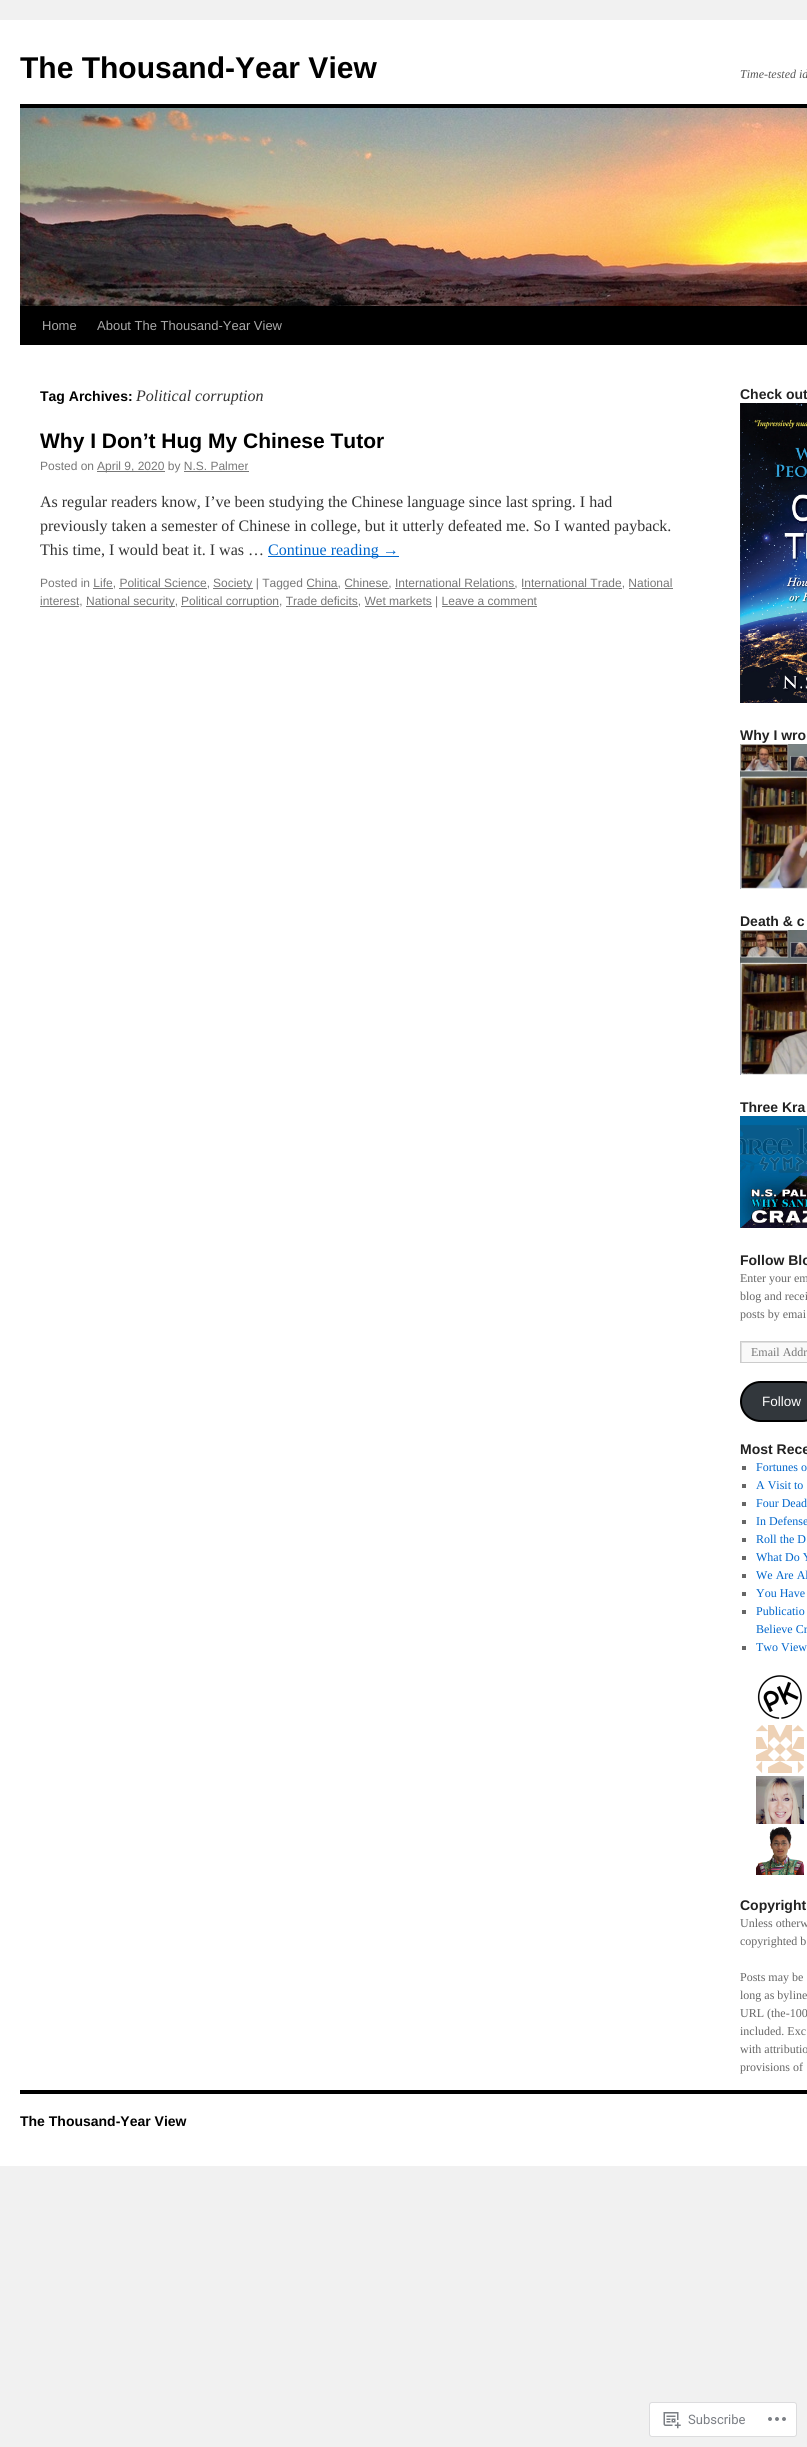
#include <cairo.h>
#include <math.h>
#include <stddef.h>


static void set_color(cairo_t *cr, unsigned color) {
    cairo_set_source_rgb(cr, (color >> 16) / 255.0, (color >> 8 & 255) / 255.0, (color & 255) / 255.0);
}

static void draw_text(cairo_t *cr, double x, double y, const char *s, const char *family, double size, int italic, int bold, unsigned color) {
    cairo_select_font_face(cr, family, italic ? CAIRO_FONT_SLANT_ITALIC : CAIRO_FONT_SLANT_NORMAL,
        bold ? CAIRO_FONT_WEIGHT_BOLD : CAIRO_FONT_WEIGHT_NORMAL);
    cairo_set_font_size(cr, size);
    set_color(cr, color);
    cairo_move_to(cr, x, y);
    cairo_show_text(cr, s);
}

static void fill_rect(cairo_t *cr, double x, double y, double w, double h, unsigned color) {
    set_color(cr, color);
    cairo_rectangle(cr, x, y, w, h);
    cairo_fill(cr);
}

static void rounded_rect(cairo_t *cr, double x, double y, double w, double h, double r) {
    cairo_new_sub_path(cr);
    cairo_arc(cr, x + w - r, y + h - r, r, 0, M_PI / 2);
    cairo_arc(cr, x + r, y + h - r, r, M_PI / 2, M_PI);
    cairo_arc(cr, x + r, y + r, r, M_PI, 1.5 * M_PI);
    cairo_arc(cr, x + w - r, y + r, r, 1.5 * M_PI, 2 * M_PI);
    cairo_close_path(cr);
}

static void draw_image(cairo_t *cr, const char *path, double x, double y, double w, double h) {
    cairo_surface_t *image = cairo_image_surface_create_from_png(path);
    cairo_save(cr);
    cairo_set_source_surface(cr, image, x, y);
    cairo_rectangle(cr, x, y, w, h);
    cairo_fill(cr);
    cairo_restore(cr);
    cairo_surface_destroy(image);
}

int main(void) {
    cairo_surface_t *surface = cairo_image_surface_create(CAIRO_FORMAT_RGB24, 807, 2447);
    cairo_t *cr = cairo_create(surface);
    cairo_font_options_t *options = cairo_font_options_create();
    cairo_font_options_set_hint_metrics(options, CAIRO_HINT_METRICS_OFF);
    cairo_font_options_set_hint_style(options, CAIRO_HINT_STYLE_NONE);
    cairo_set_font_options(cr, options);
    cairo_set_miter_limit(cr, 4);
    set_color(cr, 0xF1F1F1);
    cairo_paint(cr);
    fill_rect(cr, 0, 20, 807, 2146, 0xFFFFFF);
    draw_text(cr, 20, 78, "The Thousand-Year View", "Liberation Sans", 30, 0, 1, 0x000000);
    draw_text(cr, 740, 78, "Time-tested id", "Liberation Serif", 12, 1, 0, 0x595959);
    fill_rect(cr, 20, 104, 787, 4, 0x000000);
    fill_rect(cr, 20, 306, 787, 39, 0x000000);
    draw_image(cr, "assets/img1.png", 20, 108, 787, 198);
    draw_text(cr, 42, 330, "Home", "Liberation Sans", 13, 0, 0, 0xAAAAAA);
    draw_text(cr, 97, 330, "About The Thousand-Year View", "Liberation Sans", 13, 0, 0, 0xAAAAAA);
    draw_text(cr, 40, 401, "Tag Archives:", "Liberation Sans", 14, 0, 1, 0x000000);
    draw_text(cr, 136, 401, "Political corruption", "Liberation Serif", 16, 1, 0, 0x333333);
    draw_text(cr, 40, 448, "Why I Don’t Hug My Chinese Tutor", "Liberation Sans", 21, 0, 1, 0x000000);
    draw_text(cr, 40, 470, "Posted on", "Liberation Sans", 12, 0, 0, 0x777777);
    fill_rect(cr, 97, 471, 68, 1, 0x777777);
    draw_text(cr, 97, 470, "April 9, 2020 by N.S. Palmer", "Liberation Sans", 12, 0, 0, 0x777777);
    fill_rect(cr, 184, 471, 65, 1, 0x777777);
    draw_text(cr, 40, 507, "As regular readers know, I’ve been studying the Chinese language since last spring. I had", "Liberation Serif", 16, 0, 0, 0x333333);
    draw_text(cr, 40, 531, "previously taken a semester of Chinese in college, but it utterly defeated me. So I wanted payback.", "Liberation Serif", 16, 0, 0, 0x333333);
    draw_text(cr, 40, 555, "This time, I would beat it. I was …", "Liberation Serif", 16, 0, 0, 0x333333);
    fill_rect(cr, 268, 556, 131, 1, 0x0066CC);
    draw_text(cr, 268, 555, "Continue reading →", "Liberation Serif", 16, 0, 0, 0x0066CC);
    draw_text(cr, 40, 587, "Posted in Life, Political Science,", "Liberation Sans", 12, 0, 0, 0x777777);
    fill_rect(cr, 93, 588, 20, 1, 0x777777);
    fill_rect(cr, 119, 588, 88, 1, 0x777777);
    fill_rect(cr, 213, 588, 40, 1, 0x777777);
    draw_text(cr, 213, 587, "Society | Tagged China, Chinese, International Relations, International Trade, National", "Liberation Sans", 12, 0, 0, 0x777777);
    fill_rect(cr, 40, 606, 39, 1, 0x777777);
    draw_text(cr, 40, 605, "interest,", "Liberation Sans", 12, 0, 0, 0x777777);
    fill_rect(cr, 86, 606, 89, 1, 0x777777);
    draw_text(cr, 86, 605, "National security,", "Liberation Sans", 12, 0, 0, 0x777777);
    fill_rect(cr, 181, 606, 98, 1, 0x777777);
    draw_text(cr, 181, 605, "Political corruption, Trade deficits, Wet markets | Leave a comment", "Liberation Sans", 12, 0, 0, 0x777777);
    fill_rect(cr, 307, 588, 31, 1, 0x777777);
    fill_rect(cr, 345, 588, 44, 1, 0x777777);
    fill_rect(cr, 395, 588, 120, 1, 0x777777);
    fill_rect(cr, 522, 588, 100, 1, 0x777777);
    fill_rect(cr, 629, 588, 44, 1, 0x777777);
    fill_rect(cr, 286, 606, 72, 1, 0x777777);
    fill_rect(cr, 365, 606, 67, 1, 0x777777);
    fill_rect(cr, 442, 606, 95, 1, 0x777777);
    draw_text(cr, 740, 399, "Check out", "Liberation Sans", 14, 0, 1, 0x222222);
    draw_image(cr, "assets/img2.png", 740, 403, 67, 300);
    draw_text(cr, 740, 740, "Why I wro", "Liberation Sans", 14, 0, 1, 0x222222);
    draw_image(cr, "assets/img3.png", 740, 744, 67, 145);
    draw_text(cr, 740, 926, "Death & c", "Liberation Sans", 14, 0, 1, 0x222222);
    draw_image(cr, "assets/img4.png", 740, 930, 67, 145);
    draw_text(cr, 740, 1112, "Three Kra", "Liberation Sans", 14, 0, 1, 0x222222);
    draw_image(cr, "assets/img5.png", 740, 1116, 67, 112);
    draw_text(cr, 740, 1265, "Follow Blo", "Liberation Sans", 14, 0, 1, 0x222222);
    draw_text(cr, 740, 1282, "Enter your em", "Liberation Serif", 12, 0, 0, 0x666666);
    draw_text(cr, 740, 1300, "blog and recei", "Liberation Serif", 12, 0, 0, 0x666666);
    draw_text(cr, 740, 1318, "posts by emai", "Liberation Serif", 12, 0, 0, 0x666666);
    fill_rect(cr, 742, 1343, 65, 19, 0xF9F9F9);
    cairo_save(cr);
    cairo_rectangle(cr, 741, 1342, 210, 20);
    cairo_clip(cr);
    set_color(cr, 0xE0E0E0);
    cairo_set_fill_rule(cr, CAIRO_FILL_RULE_EVEN_ODD);
    cairo_new_path(cr);
    cairo_move_to(cr, 642, 1243);
    cairo_line_to(cr, 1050, 1243);
    cairo_line_to(cr, 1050, 1461);
    cairo_line_to(cr, 642, 1461);
    cairo_close_path(cr);
    cairo_move_to(cr, 742, 1343);
    cairo_line_to(cr, 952, 1343);
    cairo_line_to(cr, 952, 1363);
    cairo_line_to(cr, 742, 1363);
    cairo_close_path(cr);
    cairo_fill(cr);
    cairo_restore(cr);
    cairo_rectangle(cr, 740.5, 1341.5, 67, 21);
    set_color(cr, 0xCCCCCC);
    cairo_set_line_width(cr, 1);
    cairo_stroke(cr);
    draw_text(cr, 751, 1356, "Email Addr", "Liberation Serif", 12, 0, 0, 0x777777);
    set_color(cr, 0x32373C);
    rounded_rect(cr, 741, 1382, 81, 39, 19.5);
    cairo_fill_preserve(cr);
    set_color(cr, 0x000000);
    cairo_set_line_width(cr, 2);
    cairo_stroke(cr);
    draw_text(cr, 762, 1406, "Follow", "Liberation Sans", 13.5, 0, 0, 0xFFFFFF);
    draw_text(cr, 740, 1454, "Most Rece", "Liberation Sans", 14, 0, 1, 0x222222);
    fill_rect(cr, 742, 1466, 4, 4, 0x666666);
    draw_text(cr, 756, 1471, "Fortunes o", "Liberation Serif", 12, 0, 0, 0x0066CC);
    fill_rect(cr, 742, 1484, 4, 4, 0x666666);
    draw_text(cr, 756, 1489, "A Visit to", "Liberation Serif", 12, 0, 0, 0x0066CC);
    fill_rect(cr, 742, 1502, 4, 4, 0x666666);
    draw_text(cr, 756, 1507, "Four Dead", "Liberation Serif", 12, 0, 0, 0x0066CC);
    fill_rect(cr, 742, 1520, 4, 4, 0x666666);
    draw_text(cr, 756, 1525, "In Defense", "Liberation Serif", 12, 0, 0, 0x0066CC);
    fill_rect(cr, 742, 1538, 4, 4, 0x666666);
    draw_text(cr, 756, 1543, "Roll the D", "Liberation Serif", 12, 0, 0, 0x0066CC);
    fill_rect(cr, 742, 1556, 4, 4, 0x666666);
    draw_text(cr, 756, 1561, "What Do Y", "Liberation Serif", 12, 0, 0, 0x0066CC);
    fill_rect(cr, 742, 1574, 4, 4, 0x666666);
    draw_text(cr, 756, 1579, "We Are Al", "Liberation Serif", 12, 0, 0, 0x0066CC);
    fill_rect(cr, 742, 1592, 4, 4, 0x666666);
    draw_text(cr, 756, 1597, "You Have", "Liberation Serif", 12, 0, 0, 0x0066CC);
    fill_rect(cr, 742, 1610, 4, 4, 0x666666);
    draw_text(cr, 756, 1615, "Publicatio", "Liberation Serif", 12, 0, 0, 0x0066CC);
    draw_text(cr, 756, 1633, "Believe Cr", "Liberation Serif", 12, 0, 0, 0x0066CC);
    fill_rect(cr, 742, 1646, 4, 4, 0x666666);
    draw_text(cr, 756, 1651, "Two View", "Liberation Serif", 12, 0, 0, 0x0066CC);
    draw_image(cr, "assets/img6.png", 757, 1675, 45, 44);
    draw_image(cr, "assets/img7.png", 756, 1725, 48, 48);
    draw_image(cr, "assets/img8.png", 756, 1776, 48, 48);
    draw_image(cr, "assets/img9.png", 756, 1827, 48, 48);
    draw_text(cr, 740, 1910, "Copyright", "Liberation Sans", 14, 0, 1, 0x222222);
    draw_text(cr, 740, 1927, "Unless otherw", "Liberation Serif", 12, 0, 0, 0x666666);
    draw_text(cr, 740, 1945, "copyrighted b", "Liberation Serif", 12, 0, 0, 0x666666);
    draw_text(cr, 740, 1981, "Posts may be", "Liberation Serif", 12, 0, 0, 0x666666);
    draw_text(cr, 740, 1999, "long as byline", "Liberation Serif", 12, 0, 0, 0x666666);
    draw_text(cr, 740, 2017, "URL (the-100", "Liberation Serif", 12, 0, 0, 0x666666);
    draw_text(cr, 740, 2035, "included. Exc", "Liberation Serif", 12, 0, 0, 0x666666);
    draw_text(cr, 740, 2053, "with attributio", "Liberation Serif", 12, 0, 0, 0x666666);
    draw_text(cr, 740, 2071, "provisions of", "Liberation Serif", 12, 0, 0, 0x666666);
    fill_rect(cr, 20, 2090, 787, 4, 0x000000);
    draw_text(cr, 20, 2126, "The Thousand-Year View", "Liberation Sans", 14, 0, 1, 0x000000);
    set_color(cr, 0xFFFFFF);
    rounded_rect(cr, 649.5, 2402.5, 147, 34, 2.5);
    cairo_fill_preserve(cr);
    set_color(cr, 0xDCDCDE);
    cairo_set_line_width(cr, 1);
    cairo_stroke(cr);
    draw_image(cr, "assets/img10.png", 663, 2412, 18, 17);
    draw_text(cr, 688, 2424, "Subscribe", "Roboto", 13, 0, 0, 0x7A7E84);
    draw_image(cr, "assets/img11.png", 768, 2417, 18, 4);
    cairo_surface_write_to_png(surface, "output.png");
    cairo_font_options_destroy(options);
    cairo_destroy(cr);
    cairo_surface_destroy(surface);
    return 0;
}
